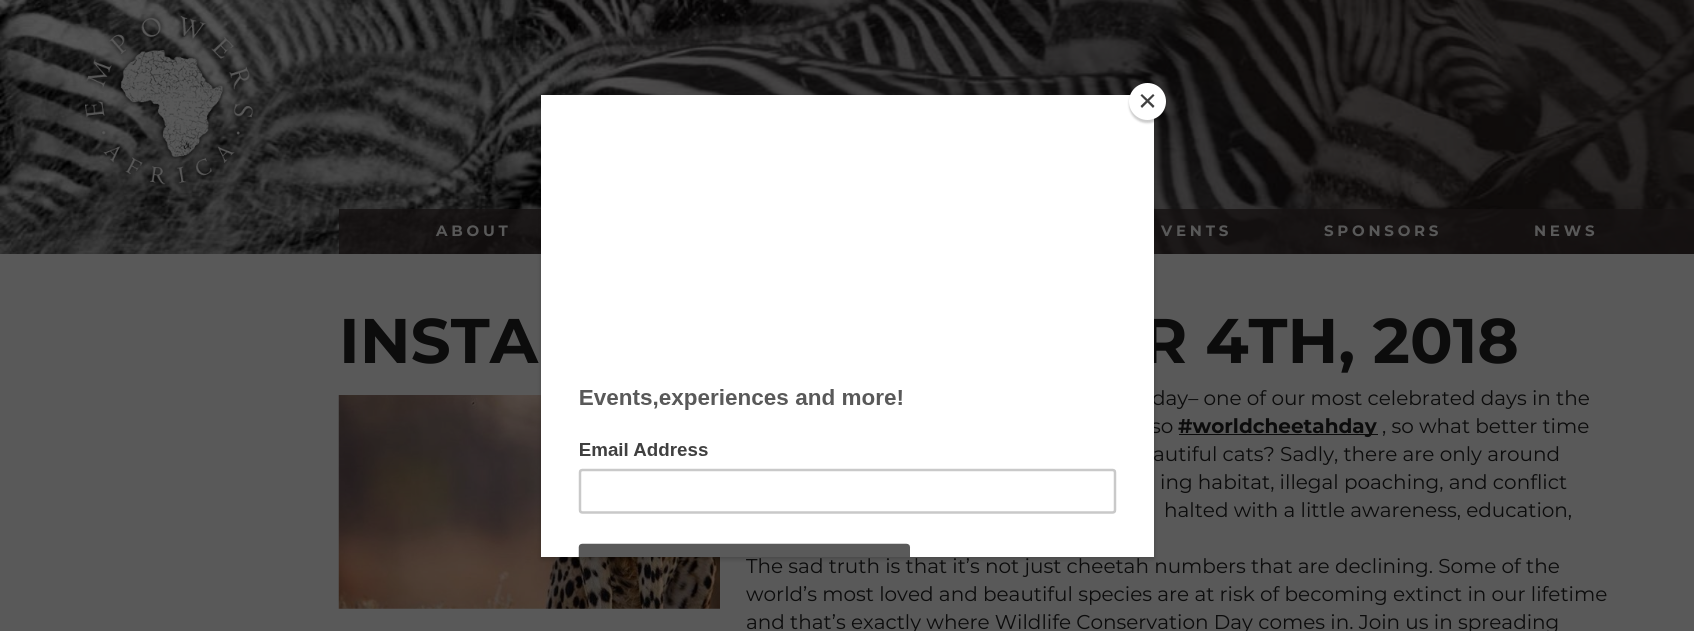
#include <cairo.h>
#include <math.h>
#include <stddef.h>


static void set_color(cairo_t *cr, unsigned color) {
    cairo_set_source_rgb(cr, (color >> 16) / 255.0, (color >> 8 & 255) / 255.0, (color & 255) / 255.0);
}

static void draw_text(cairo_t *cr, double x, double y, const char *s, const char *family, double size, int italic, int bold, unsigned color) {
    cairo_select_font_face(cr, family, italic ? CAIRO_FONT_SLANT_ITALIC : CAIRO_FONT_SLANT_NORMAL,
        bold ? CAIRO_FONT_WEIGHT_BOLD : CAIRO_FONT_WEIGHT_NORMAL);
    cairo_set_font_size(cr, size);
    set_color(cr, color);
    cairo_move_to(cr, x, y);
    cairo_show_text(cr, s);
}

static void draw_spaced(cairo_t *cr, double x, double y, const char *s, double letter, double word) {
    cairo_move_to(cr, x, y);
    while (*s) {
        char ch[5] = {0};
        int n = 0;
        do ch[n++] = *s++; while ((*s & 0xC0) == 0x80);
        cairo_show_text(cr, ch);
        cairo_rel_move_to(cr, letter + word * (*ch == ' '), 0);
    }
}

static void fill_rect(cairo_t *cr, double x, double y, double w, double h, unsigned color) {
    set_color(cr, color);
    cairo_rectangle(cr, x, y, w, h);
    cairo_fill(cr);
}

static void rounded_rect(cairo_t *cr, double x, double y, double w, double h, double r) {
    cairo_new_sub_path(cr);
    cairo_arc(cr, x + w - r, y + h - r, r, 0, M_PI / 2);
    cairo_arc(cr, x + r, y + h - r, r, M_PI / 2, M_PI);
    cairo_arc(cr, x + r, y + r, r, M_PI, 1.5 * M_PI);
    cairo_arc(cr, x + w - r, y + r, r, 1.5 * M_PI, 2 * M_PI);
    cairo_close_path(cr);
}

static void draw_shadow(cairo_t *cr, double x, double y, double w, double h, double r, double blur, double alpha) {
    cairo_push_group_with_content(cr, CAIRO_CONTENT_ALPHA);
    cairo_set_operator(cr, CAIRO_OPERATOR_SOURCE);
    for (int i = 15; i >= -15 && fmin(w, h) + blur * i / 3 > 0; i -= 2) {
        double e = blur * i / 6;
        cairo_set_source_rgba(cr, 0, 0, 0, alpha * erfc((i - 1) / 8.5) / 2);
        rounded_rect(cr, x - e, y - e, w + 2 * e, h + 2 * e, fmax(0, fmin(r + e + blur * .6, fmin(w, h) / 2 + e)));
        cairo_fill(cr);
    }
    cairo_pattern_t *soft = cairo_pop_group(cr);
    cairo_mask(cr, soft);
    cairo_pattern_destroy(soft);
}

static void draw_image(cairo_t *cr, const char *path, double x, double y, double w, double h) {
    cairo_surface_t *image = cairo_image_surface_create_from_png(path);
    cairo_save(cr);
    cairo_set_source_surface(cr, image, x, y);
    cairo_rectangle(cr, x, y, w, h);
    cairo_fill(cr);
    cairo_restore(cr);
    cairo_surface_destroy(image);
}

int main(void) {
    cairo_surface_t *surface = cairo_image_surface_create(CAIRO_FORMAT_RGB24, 1694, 631);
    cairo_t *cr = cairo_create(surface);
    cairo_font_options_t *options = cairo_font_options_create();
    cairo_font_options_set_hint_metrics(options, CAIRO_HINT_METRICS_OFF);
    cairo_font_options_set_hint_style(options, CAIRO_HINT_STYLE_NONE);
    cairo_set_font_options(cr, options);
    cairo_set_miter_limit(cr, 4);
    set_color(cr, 0x595959);
    cairo_paint(cr);
    draw_image(cr, "assets/img2.png", 0, 0, 1694, 254);
    cairo_set_source_rgba(cr, 0.086, 0.071, 0.071, 0.8);
    cairo_rectangle(cr, 339, 209, 1355, 45);
    cairo_fill(cr);
    draw_image(cr, "assets/img4.png", 338, 395, 382, 214);
    set_color(cr, 0x000000);
    draw_shadow(cr, 541, 98, 613, 461, 0, 2.5, 0.2);
    draw_text(cr, 1141, 363, "R 4TH, 2018", "Montserrat", 63, 0, 1, 0x0C0C0C);
    draw_text(cr, 1152, 405, "day– one of our most celebrated days in the", "Montserrat", 20, 0, 0, 0x0C0C0C);
    draw_text(cr, 1151, 433, "so", "Montserrat", 20, 0, 0, 0x0C0C0C);
    draw_image(cr, "assets/img1.png", 541, 95, 613, 462);
    set_color(cr, 0x000000);
    draw_shadow(cr, 1129, 85, 37, 38, 18.5, 1, 0.2);
    set_color(cr, 0xFFFFFF);
    cairo_arc(cr, 1147.5, 101.5, 18.5, 0, 2 * M_PI);
    cairo_fill(cr);
    set_color(cr, 0x414141);
    cairo_new_path(cr);
    cairo_move_to(cr, 1153, 94);
    cairo_line_to(cr, 1154.5, 95.5);
    cairo_line_to(cr, 1142, 108);
    cairo_line_to(cr, 1140.5, 106);
    cairo_close_path(cr);
    cairo_fill(cr);
    cairo_new_path(cr);
    cairo_move_to(cr, 1140.5, 95.5);
    cairo_line_to(cr, 1142, 94);
    cairo_line_to(cr, 1154.5, 106);
    cairo_line_to(cr, 1153, 108);
    cairo_close_path(cr);
    cairo_fill(cr);
    draw_image(cr, "assets/img3.png", 82, 14, 174, 173);
    cairo_select_font_face(cr, "Montserrat", CAIRO_FONT_SLANT_NORMAL, CAIRO_FONT_WEIGHT_BOLD);
    cairo_set_font_size(cr, 15);
    set_color(cr, 0x595959);
    draw_spaced(cr, 436, 236, "ABOUT", 3.75, 0);
    draw_spaced(cr, 1161, 236, "VENTS", 3.75, 0);
    draw_spaced(cr, 1324, 236, "SPONSORS", 3.75, 0);
    draw_spaced(cr, 1534, 236, "NEWS", 3.75, 0);
    draw_text(cr, 339, 363, "INSTA", "Montserrat", 63, 0, 1, 0x0C0C0C);
    fill_rect(cr, 1179, 434, 199, 1, 0x0C0C0C);
    draw_text(cr, 1178, 433, "#worldcheetahday", "Montserrat", 20, 0, 1, 0x0C0C0C);
    draw_text(cr, 1382, 433, ", so what better time", "Montserrat", 20, 0, 0, 0x0C0C0C);
    draw_text(cr, 1153, 461, "autiful cats? Sadly, there are only around", "Montserrat", 20, 0, 0, 0x0C0C0C);
    draw_text(cr, 1160, 489, "ing habitat, illegal poaching, and conflict", "Montserrat", 20, 0, 0, 0x0C0C0C);
    draw_text(cr, 1164, 517, "halted with a little awareness, education,", "Montserrat", 20, 0, 0, 0x0C0C0C);
    draw_text(cr, 746, 573, "The sad truth is that it’s not just cheetah numbers that are declining. Some of the", "Montserrat", 20, 0, 0, 0x0C0C0C);
    draw_text(cr, 746, 601, "world’s most loved and beautiful species are at risk of becoming extinct in our lifetime", "Montserrat", 20, 0, 0, 0x0C0C0C);
    draw_text(cr, 746, 629, "and that’s exactly where Wildlife Conservation Day comes in. Join us in spreading", "Montserrat", 20, 0, 0, 0x0C0C0C);
    cairo_surface_write_to_png(surface, "output.png");
    cairo_font_options_destroy(options);
    cairo_destroy(cr);
    cairo_surface_destroy(surface);
    return 0;
}
